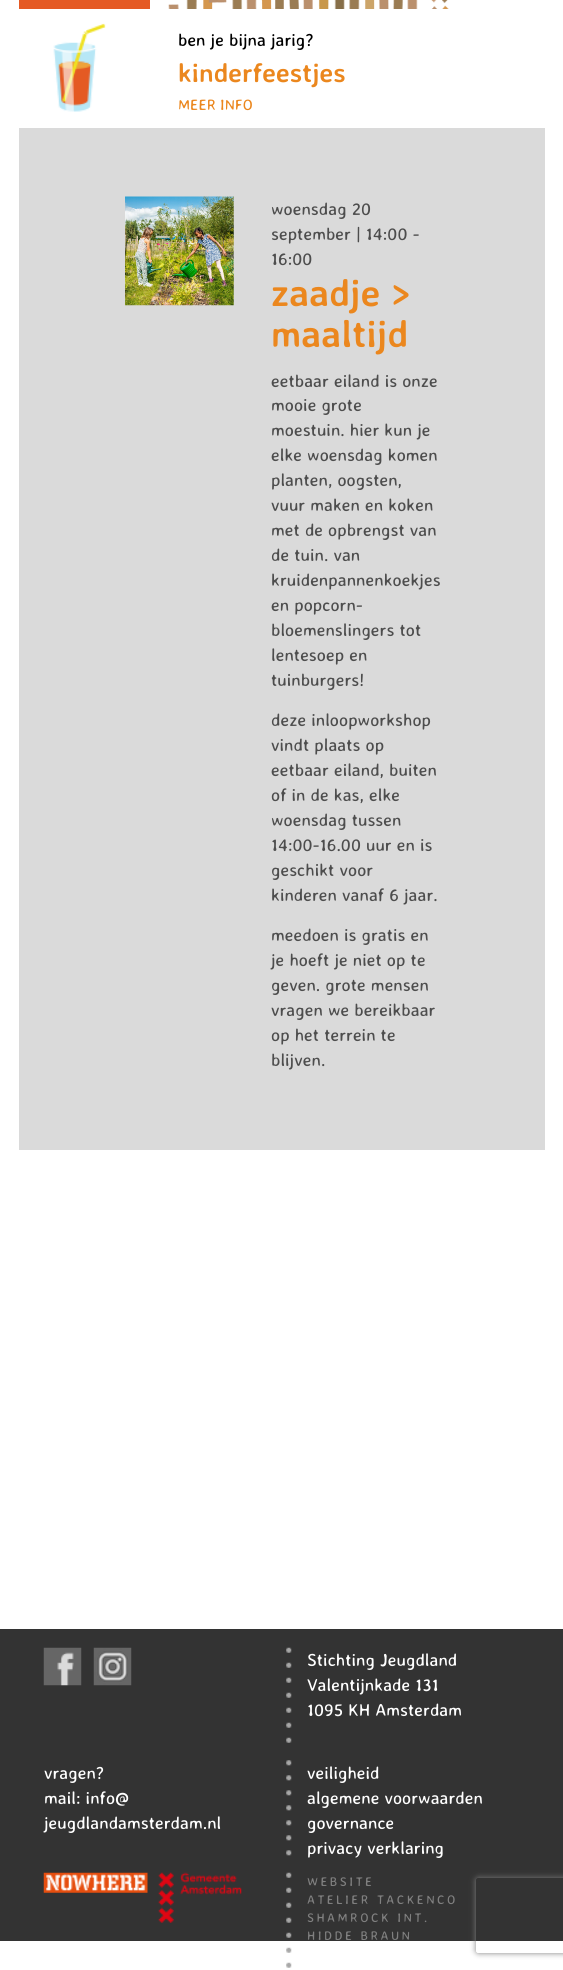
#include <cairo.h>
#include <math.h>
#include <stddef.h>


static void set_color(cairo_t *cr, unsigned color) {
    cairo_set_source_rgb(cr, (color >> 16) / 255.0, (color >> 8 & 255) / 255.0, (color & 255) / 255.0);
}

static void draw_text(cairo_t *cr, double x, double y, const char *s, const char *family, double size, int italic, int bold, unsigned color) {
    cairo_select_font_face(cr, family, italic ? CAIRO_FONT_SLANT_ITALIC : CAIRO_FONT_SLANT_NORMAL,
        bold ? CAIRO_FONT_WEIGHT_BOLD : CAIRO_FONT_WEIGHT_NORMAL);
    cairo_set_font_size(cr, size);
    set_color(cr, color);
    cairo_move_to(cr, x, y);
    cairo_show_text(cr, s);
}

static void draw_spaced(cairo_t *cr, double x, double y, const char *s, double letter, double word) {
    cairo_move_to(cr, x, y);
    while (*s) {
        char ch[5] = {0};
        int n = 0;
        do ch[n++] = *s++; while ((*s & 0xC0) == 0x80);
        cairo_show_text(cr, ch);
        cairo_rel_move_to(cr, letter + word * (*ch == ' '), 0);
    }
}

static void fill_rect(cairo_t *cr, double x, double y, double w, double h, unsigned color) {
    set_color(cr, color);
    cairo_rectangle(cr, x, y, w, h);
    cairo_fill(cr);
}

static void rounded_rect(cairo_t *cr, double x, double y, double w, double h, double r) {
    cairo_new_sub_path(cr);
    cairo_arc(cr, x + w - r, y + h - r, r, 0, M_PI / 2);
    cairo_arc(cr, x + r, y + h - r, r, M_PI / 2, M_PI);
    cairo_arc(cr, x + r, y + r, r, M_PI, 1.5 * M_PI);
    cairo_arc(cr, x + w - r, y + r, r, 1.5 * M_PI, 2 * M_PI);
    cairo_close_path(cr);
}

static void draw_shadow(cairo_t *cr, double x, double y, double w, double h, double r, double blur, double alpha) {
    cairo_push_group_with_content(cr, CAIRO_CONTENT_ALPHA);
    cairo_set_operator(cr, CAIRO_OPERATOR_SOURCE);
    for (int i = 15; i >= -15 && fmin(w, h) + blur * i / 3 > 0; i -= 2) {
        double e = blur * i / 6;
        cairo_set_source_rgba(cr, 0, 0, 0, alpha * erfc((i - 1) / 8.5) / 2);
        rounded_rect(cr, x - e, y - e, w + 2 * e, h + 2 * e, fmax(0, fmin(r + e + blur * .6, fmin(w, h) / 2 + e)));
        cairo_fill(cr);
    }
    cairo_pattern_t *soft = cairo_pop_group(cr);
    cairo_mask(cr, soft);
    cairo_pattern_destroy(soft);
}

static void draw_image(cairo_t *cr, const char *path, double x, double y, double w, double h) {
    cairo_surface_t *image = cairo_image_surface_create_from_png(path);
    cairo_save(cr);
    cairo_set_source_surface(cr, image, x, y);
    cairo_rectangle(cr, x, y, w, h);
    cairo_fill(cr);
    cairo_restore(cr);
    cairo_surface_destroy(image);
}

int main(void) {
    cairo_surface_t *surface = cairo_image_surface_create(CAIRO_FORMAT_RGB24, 563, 1970);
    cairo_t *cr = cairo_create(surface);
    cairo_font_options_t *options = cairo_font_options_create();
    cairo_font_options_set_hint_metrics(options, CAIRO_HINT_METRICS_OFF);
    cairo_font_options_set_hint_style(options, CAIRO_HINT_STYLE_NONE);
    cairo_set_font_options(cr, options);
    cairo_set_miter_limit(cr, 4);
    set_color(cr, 0xFFFFFF);
    cairo_paint(cr);
    fill_rect(cr, 19, 0, 131, 9, 0xE55A24);
    draw_image(cr, "assets/img1.png", 168, 0, 281, 9);
    draw_image(cr, "assets/img2.png", 53, 23, 53, 89);
    draw_text(cr, 178, 46, "ben je bijna jarig?", "Averia Sans Libre", 17.5, 0, 0, 0x000000);
    draw_text(cr, 178, 82, "kinderfeestjes", "Averia Sans Libre", 26.25, 0, 1, 0xEB871E);
    draw_text(cr, 178, 110, "MEER INFO", "Averia Sans Libre", 15, 0, 0, 0xEB871E);
    fill_rect(cr, 19, 128, 526, 1022, 0xDADADA);
    draw_image(cr, "assets/img3.png", 125, 196, 109, 110);
    draw_text(cr, 271, 215, "woensdag 20", "Averia Sans Libre", 17.5, 0, 0, 0x4D4D4D);
    draw_text(cr, 271, 240, "september | 14:00 -", "Averia Sans Libre", 17.5, 0, 0, 0x4D4D4D);
    draw_text(cr, 271, 265, "16:00", "Averia Sans Libre", 17.5, 0, 0, 0x4D4D4D);
    draw_text(cr, 271, 306, "zaadje >", "Averia Sans Libre", 37.5, 0, 1, 0xEB871E);
    draw_text(cr, 271, 347, "maaltijd", "Averia Sans Libre", 37.5, 0, 1, 0xEB871E);
    draw_text(cr, 271, 387, "eetbaar eiland is onze", "Averia Sans Libre", 17.5, 0, 0, 0x4D4D4D);
    draw_text(cr, 271, 411, "mooie grote", "Averia Sans Libre", 17.5, 0, 0, 0x4D4D4D);
    draw_text(cr, 271, 436, "moestuin. hier kun je", "Averia Sans Libre", 17.5, 0, 0, 0x4D4D4D);
    draw_text(cr, 271, 461, "elke woensdag komen", "Averia Sans Libre", 17.5, 0, 0, 0x4D4D4D);
    draw_text(cr, 271, 486, "planten, oogsten,", "Averia Sans Libre", 17.5, 0, 0, 0x4D4D4D);
    draw_text(cr, 271, 511, "vuur maken en koken", "Averia Sans Libre", 17.5, 0, 0, 0x4D4D4D);
    draw_text(cr, 271, 536, "met de opbrengst van", "Averia Sans Libre", 17.5, 0, 0, 0x4D4D4D);
    draw_text(cr, 271, 561, "de tuin. van", "Averia Sans Libre", 17.5, 0, 0, 0x4D4D4D);
    draw_text(cr, 271, 586, "kruidenpannenkoekjes", "Averia Sans Libre", 17.5, 0, 0, 0x4D4D4D);
    draw_text(cr, 271, 611, "en popcorn-", "Averia Sans Libre", 17.5, 0, 0, 0x4D4D4D);
    draw_text(cr, 271, 636, "bloemenslingers tot", "Averia Sans Libre", 17.5, 0, 0, 0x4D4D4D);
    draw_text(cr, 271, 661, "lentesoep en", "Averia Sans Libre", 17.5, 0, 0, 0x4D4D4D);
    draw_text(cr, 271, 686, "tuinburgers!", "Averia Sans Libre", 17.5, 0, 0, 0x4D4D4D);
    draw_text(cr, 271, 726, "deze inloopworkshop", "Averia Sans Libre", 17.5, 0, 0, 0x4D4D4D);
    draw_text(cr, 271, 751, "vindt plaats op", "Averia Sans Libre", 17.5, 0, 0, 0x4D4D4D);
    draw_text(cr, 271, 776, "eetbaar eiland, buiten", "Averia Sans Libre", 17.5, 0, 0, 0x4D4D4D);
    draw_text(cr, 271, 801, "of in de kas, elke", "Averia Sans Libre", 17.5, 0, 0, 0x4D4D4D);
    draw_text(cr, 271, 826, "woensdag tussen", "Averia Sans Libre", 17.5, 0, 0, 0x4D4D4D);
    draw_text(cr, 271, 851, "14:00-16.00 uur en is", "Averia Sans Libre", 17.5, 0, 0, 0x4D4D4D);
    draw_text(cr, 271, 876, "geschikt voor", "Averia Sans Libre", 17.5, 0, 0, 0x4D4D4D);
    draw_text(cr, 271, 901, "kinderen vanaf 6 jaar.", "Averia Sans Libre", 17.5, 0, 0, 0x4D4D4D);
    draw_text(cr, 271, 941, "meedoen is gratis en", "Averia Sans Libre", 17.5, 0, 0, 0x4D4D4D);
    draw_text(cr, 271, 966, "je hoeft je niet op te", "Averia Sans Libre", 17.5, 0, 0, 0x4D4D4D);
    draw_text(cr, 271, 991, "geven. grote mensen", "Averia Sans Libre", 17.5, 0, 0, 0x4D4D4D);
    draw_text(cr, 271, 1016, "vragen we bereikbaar", "Averia Sans Libre", 17.5, 0, 0, 0x4D4D4D);
    draw_text(cr, 271, 1041, "op het terrein te", "Averia Sans Libre", 17.5, 0, 0, 0x4D4D4D);
    draw_text(cr, 271, 1066, "blijven.", "Averia Sans Libre", 17.5, 0, 0, 0x4D4D4D);
    fill_rect(cr, 0, 1629, 563, 312, 0x333333);
    draw_image(cr, "assets/img4.png", 43, 1647, 39, 39);
    draw_image(cr, "assets/img5.png", 93, 1647, 39, 39);
    draw_image(cr, "assets/img6.png", 286, 1647, 6, 96);
    draw_text(cr, 307, 1666, "Stichting Jeugdland", "Averia Sans Libre", 17.5, 0, 0, 0xFFFFFF);
    draw_text(cr, 307, 1691, "Valentijnkade 131", "Averia Sans Libre", 17.5, 0, 0, 0xFFFFFF);
    draw_text(cr, 307, 1716, "1095 KH Amsterdam", "Averia Sans Libre", 17.5, 0, 0, 0xFFFFFF);
    draw_text(cr, 44, 1779, "vragen?", "Averia Sans Libre", 17.5, 0, 0, 0xFFFFFF);
    draw_text(cr, 44, 1804, "mail: info@", "Averia Sans Libre", 17.5, 0, 0, 0xFFFFFF);
    draw_text(cr, 44, 1829, "jeugdlandamsterdam.nl", "Averia Sans Libre", 17.5, 0, 0, 0xFFFFFF);
    draw_image(cr, "assets/img7.png", 286, 1760, 6, 96);
    draw_text(cr, 307, 1779, "veiligheid", "Averia Sans Libre", 17.5, 0, 0, 0xFFFFFF);
    draw_text(cr, 307, 1804, "algemene voorwaarden", "Averia Sans Libre", 17.5, 0, 0, 0xFFFFFF);
    draw_text(cr, 307, 1829, "governance", "Averia Sans Libre", 17.5, 0, 0, 0xFFFFFF);
    draw_text(cr, 307, 1854, "privacy verklaring", "Averia Sans Libre", 17.5, 0, 0, 0xFFFFFF);
    draw_image(cr, "assets/img8.png", 43, 1872, 105, 21);
    draw_image(cr, "assets/img9.png", 158, 1872, 84, 51);
    draw_image(cr, "assets/img10.png", 286, 1872, 6, 96);
    cairo_set_font_size(cr, 12.5);
    set_color(cr, 0x808080);
    draw_spaced(cr, 307, 1886, "WEBSITE", 2.5, 0);
    draw_spaced(cr, 307, 1904, "ATELIER TACKENCO", 2.5, 0);
    draw_spaced(cr, 307, 1922, "SHAMROCK INT.", 2.5, 0);
    draw_spaced(cr, 307, 1940, "HIDDE BRAUN", 2.5, 0);
    cairo_save(cr);
    cairo_set_fill_rule(cr, CAIRO_FILL_RULE_EVEN_ODD);
    cairo_new_path(cr);
    cairo_move_to(cr, 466, 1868);
    cairo_line_to(cr, 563, 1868);
    cairo_line_to(cr, 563, 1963);
    cairo_line_to(cr, 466, 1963);
    cairo_close_path(cr);
    cairo_move_to(cr, 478.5, 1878);
    cairo_line_to(cr, 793.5, 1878);
    cairo_curve_to(cr, 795, 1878, 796, 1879, 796, 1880.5);
    cairo_line_to(cr, 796, 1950.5);
    cairo_curve_to(cr, 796, 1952, 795, 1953, 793.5, 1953);
    cairo_line_to(cr, 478.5, 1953);
    cairo_curve_to(cr, 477, 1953, 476, 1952, 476, 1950.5);
    cairo_line_to(cr, 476, 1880.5);
    cairo_curve_to(cr, 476, 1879, 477, 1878, 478.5, 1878);
    cairo_close_path(cr);
    cairo_clip(cr);
    set_color(cr, 0x808080);
    draw_shadow(cr, 476, 1878, 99, 75, 2.5, 3, 1);
    cairo_restore(cr);
    cairo_surface_write_to_png(surface, "output.png");
    cairo_font_options_destroy(options);
    cairo_destroy(cr);
    cairo_surface_destroy(surface);
    return 0;
}
